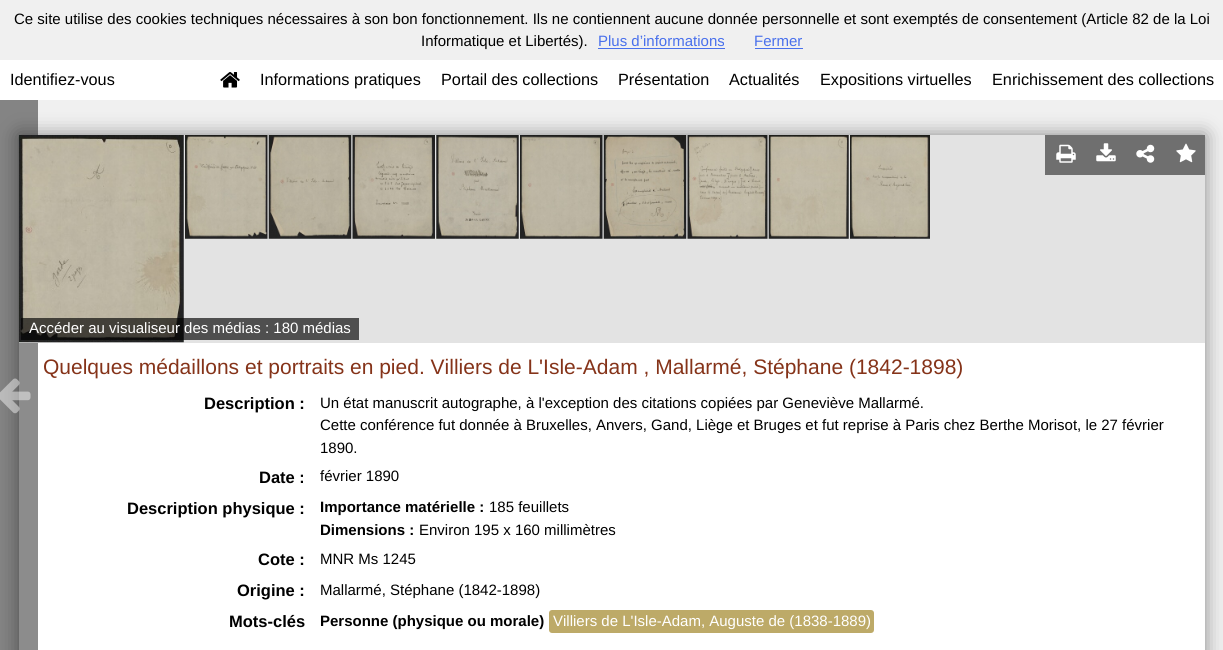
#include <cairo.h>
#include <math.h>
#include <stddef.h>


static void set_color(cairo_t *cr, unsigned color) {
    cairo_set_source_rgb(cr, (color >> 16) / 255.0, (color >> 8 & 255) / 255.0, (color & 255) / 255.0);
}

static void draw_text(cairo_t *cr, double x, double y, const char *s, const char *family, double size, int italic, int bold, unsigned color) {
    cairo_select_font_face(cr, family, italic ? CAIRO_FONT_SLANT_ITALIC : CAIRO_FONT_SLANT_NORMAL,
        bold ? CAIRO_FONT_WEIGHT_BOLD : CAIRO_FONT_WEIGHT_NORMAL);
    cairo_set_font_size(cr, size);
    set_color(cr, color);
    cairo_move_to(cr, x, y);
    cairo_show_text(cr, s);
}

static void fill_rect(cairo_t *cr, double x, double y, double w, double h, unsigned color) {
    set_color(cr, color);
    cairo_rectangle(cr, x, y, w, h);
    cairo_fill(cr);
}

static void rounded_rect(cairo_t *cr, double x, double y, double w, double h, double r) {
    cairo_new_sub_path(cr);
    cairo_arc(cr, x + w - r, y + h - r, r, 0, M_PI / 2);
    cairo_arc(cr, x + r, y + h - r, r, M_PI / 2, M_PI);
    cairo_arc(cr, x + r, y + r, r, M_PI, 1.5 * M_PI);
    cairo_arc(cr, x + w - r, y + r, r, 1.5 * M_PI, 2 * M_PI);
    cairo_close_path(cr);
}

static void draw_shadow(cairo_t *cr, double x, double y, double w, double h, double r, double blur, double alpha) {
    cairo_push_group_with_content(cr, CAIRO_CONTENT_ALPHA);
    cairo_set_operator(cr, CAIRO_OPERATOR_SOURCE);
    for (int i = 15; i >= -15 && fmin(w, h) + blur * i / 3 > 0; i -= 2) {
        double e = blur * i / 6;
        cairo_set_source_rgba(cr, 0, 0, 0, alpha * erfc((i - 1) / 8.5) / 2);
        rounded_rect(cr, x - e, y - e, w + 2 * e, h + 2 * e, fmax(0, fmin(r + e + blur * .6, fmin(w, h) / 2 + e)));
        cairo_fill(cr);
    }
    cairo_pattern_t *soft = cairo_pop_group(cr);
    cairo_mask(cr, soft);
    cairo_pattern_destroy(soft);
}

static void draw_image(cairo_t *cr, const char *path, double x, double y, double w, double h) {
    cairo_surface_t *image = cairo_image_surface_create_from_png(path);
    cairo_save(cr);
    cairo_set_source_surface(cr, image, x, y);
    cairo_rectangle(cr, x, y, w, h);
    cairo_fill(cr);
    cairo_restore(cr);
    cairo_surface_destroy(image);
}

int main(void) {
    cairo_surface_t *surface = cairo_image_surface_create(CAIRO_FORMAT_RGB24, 1223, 650);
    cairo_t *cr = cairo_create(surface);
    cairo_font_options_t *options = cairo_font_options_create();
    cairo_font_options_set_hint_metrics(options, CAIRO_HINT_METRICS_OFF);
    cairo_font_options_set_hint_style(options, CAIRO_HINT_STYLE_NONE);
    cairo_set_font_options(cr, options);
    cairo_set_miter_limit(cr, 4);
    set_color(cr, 0xF0F0F0);
    cairo_paint(cr);
    draw_text(cr, 14, 24, "Ce site utilise des cookies techniques nécessaires à son bon fonctionnement. Ils ne contiennent aucune donnée personnelle et sont exemptés de consentement (Article 82 de la Loi", "Liberation Sans", 15, 0, 0, 0x000000);
    draw_text(cr, 421, 46, "Informatique et Libertés).", "Liberation Sans", 15, 0, 0, 0x000000);
    draw_text(cr, 598, 46, "Plus d’informations", "Liberation Sans", 15, 0, 0, 0x4970EC);
    fill_rect(cr, 598, 48, 127, 1, 0x4970EC);
    draw_text(cr, 754, 46, "Fermer", "Liberation Sans", 15, 0, 0, 0x4970EC);
    fill_rect(cr, 755, 48, 48, 1, 0x4970EC);
    fill_rect(cr, 0, 60, 1223, 40, 0xFFFFFF);
    draw_text(cr, 10, 85, "Identifiez-vous", "Liberation Sans", 16.25, 0, 0, 0x000000);
    draw_image(cr, "assets/img1.png", 220, 72, 20, 16);
    draw_text(cr, 260, 85, "Informations pratiques", "Liberation Sans", 16.25, 0, 0, 0x000000);
    draw_text(cr, 441, 85, "Portail des collections", "Liberation Sans", 16.25, 0, 0, 0x000000);
    draw_text(cr, 618, 85, "Présentation", "Liberation Sans", 16.25, 0, 0, 0x000000);
    draw_text(cr, 729, 85, "Actualités", "Liberation Sans", 16.25, 0, 0, 0x000000);
    draw_text(cr, 820, 85, "Expositions virtuelles", "Liberation Sans", 16.25, 0, 0, 0x000000);
    draw_text(cr, 992, 85, "Enrichissement des collections", "Liberation Sans", 16.25, 0, 0, 0x000000);
    set_color(cr, 0x888888);
    draw_shadow(cr, 19, 135, 1186, 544, 0, 9.5, 1);
    fill_rect(cr, 19, 343, 1186, 307, 0xFFFFFF);
    cairo_set_source_rgba(cr, 0, 0, 0, 0.45);
    cairo_rectangle(cr, 0, 100, 38, 550);
    cairo_fill(cr);
    draw_image(cr, "assets/img2.png", 0, 378, 31, 36);
    fill_rect(cr, 19, 135, 1186, 208, 0xE3E3E3);
    fill_rect(cr, 1045, 135, 80, 40, 0x6F6F6F);
    draw_image(cr, "assets/img3.png", 1056, 144, 20, 19);
    fill_rect(cr, 1125, 135, 80, 40, 0x6F6F6F);
    draw_image(cr, "assets/img4.png", 1176, 143, 20, 20);
    draw_image(cr, "assets/img5.png", 1096, 143, 20, 19);
    draw_image(cr, "assets/img6.png", 1136, 144, 19, 19);
    draw_image(cr, "assets/img7.png", 18, 135, 166, 208);
    draw_image(cr, "assets/img8.png", 185, 135, 83, 104);
    draw_image(cr, "assets/img9.png", 268, 135, 84, 104);
    draw_image(cr, "assets/img10.png", 352, 135, 83, 104);
    draw_image(cr, "assets/img11.png", 436, 135, 83, 104);
    draw_image(cr, "assets/img12.png", 520, 135, 83, 104);
    draw_image(cr, "assets/img13.png", 603, 135, 84, 104);
    draw_image(cr, "assets/img14.png", 687, 135, 81, 104);
    draw_image(cr, "assets/img15.png", 768, 135, 81, 104);
    draw_image(cr, "assets/img16.png", 850, 135, 80, 104);
    cairo_set_source_rgba(cr, 0, 0, 0, 0.65);
    cairo_rectangle(cr, 21, 318, 338, 22);
    cairo_fill(cr);
    draw_text(cr, 29, 333, "Accéder au visualiseur des médias : 180 médias", "Liberation Sans", 15, 0, 0, 0xFFFFFF);
    draw_text(cr, 43, 374, "Quelques médaillons et portraits en pied. Villiers de L'Isle-Adam , Mallarmé, Stéphane (1842-1898)", "Liberation Sans", 21, 0, 0, 0x853319);
    draw_text(cr, 204, 409, "Description :", "Liberation Sans", 16.5, 0, 1, 0x000000);
    draw_text(cr, 320, 408, "Un état manuscrit autographe, à l'exception des citations copiées par Geneviève Mallarmé.", "Liberation Sans", 15, 0, 0, 0x000000);
    draw_text(cr, 320, 430, "Cette conférence fut donnée à Bruxelles, Anvers, Gand, Liège et Bruges et fut reprise à Paris chez Berthe Morisot, le 27 février", "Liberation Sans", 15, 0, 0, 0x000000);
    draw_text(cr, 320, 453, "1890.", "Liberation Sans", 15, 0, 0, 0x000000);
    draw_text(cr, 259, 483, "Date :", "Liberation Sans", 16.5, 0, 1, 0x000000);
    draw_text(cr, 320, 481, "février 1890", "Liberation Sans", 15, 0, 0, 0x000000);
    draw_text(cr, 127, 514, "Description physique :", "Liberation Sans", 16.5, 0, 1, 0x000000);
    draw_text(cr, 320, 512, "Importance matérielle :", "Liberation Sans", 15, 0, 1, 0x000000);
    draw_text(cr, 489, 512, "185 feuillets", "Liberation Sans", 15, 0, 0, 0x000000);
    draw_text(cr, 320, 535, "Dimensions :", "Liberation Sans", 15, 0, 1, 0x000000);
    draw_text(cr, 419, 535, "Environ 195 x 160 millimètres", "Liberation Sans", 15, 0, 0, 0x000000);
    draw_text(cr, 258, 565, "Cote :", "Liberation Sans", 16.5, 0, 1, 0x000000);
    draw_text(cr, 320, 564, "MNR Ms 1245", "Liberation Sans", 15, 0, 0, 0x000000);
    draw_text(cr, 237, 596, "Origine :", "Liberation Sans", 16.5, 0, 1, 0x000000);
    draw_text(cr, 320, 595, "Mallarmé, Stéphane (1842-1898)", "Liberation Sans", 15, 0, 0, 0x000000);
    draw_text(cr, 229, 627, "Mots-clés", "Liberation Sans", 16.5, 0, 1, 0x000000);
    draw_text(cr, 320, 626, "Personne (physique ou morale)", "Liberation Sans", 15, 0, 1, 0x000000);
    set_color(cr, 0xBDAA68);
    rounded_rect(cr, 549, 610, 325, 23, 3);
    cairo_fill(cr);
    draw_text(cr, 553, 626, "Villiers de L'Isle-Adam, Auguste de (1838-1889)", "Liberation Sans", 15, 0, 0, 0xFFFFFF);
    cairo_surface_write_to_png(surface, "output.png");
    cairo_font_options_destroy(options);
    cairo_destroy(cr);
    cairo_surface_destroy(surface);
    return 0;
}
